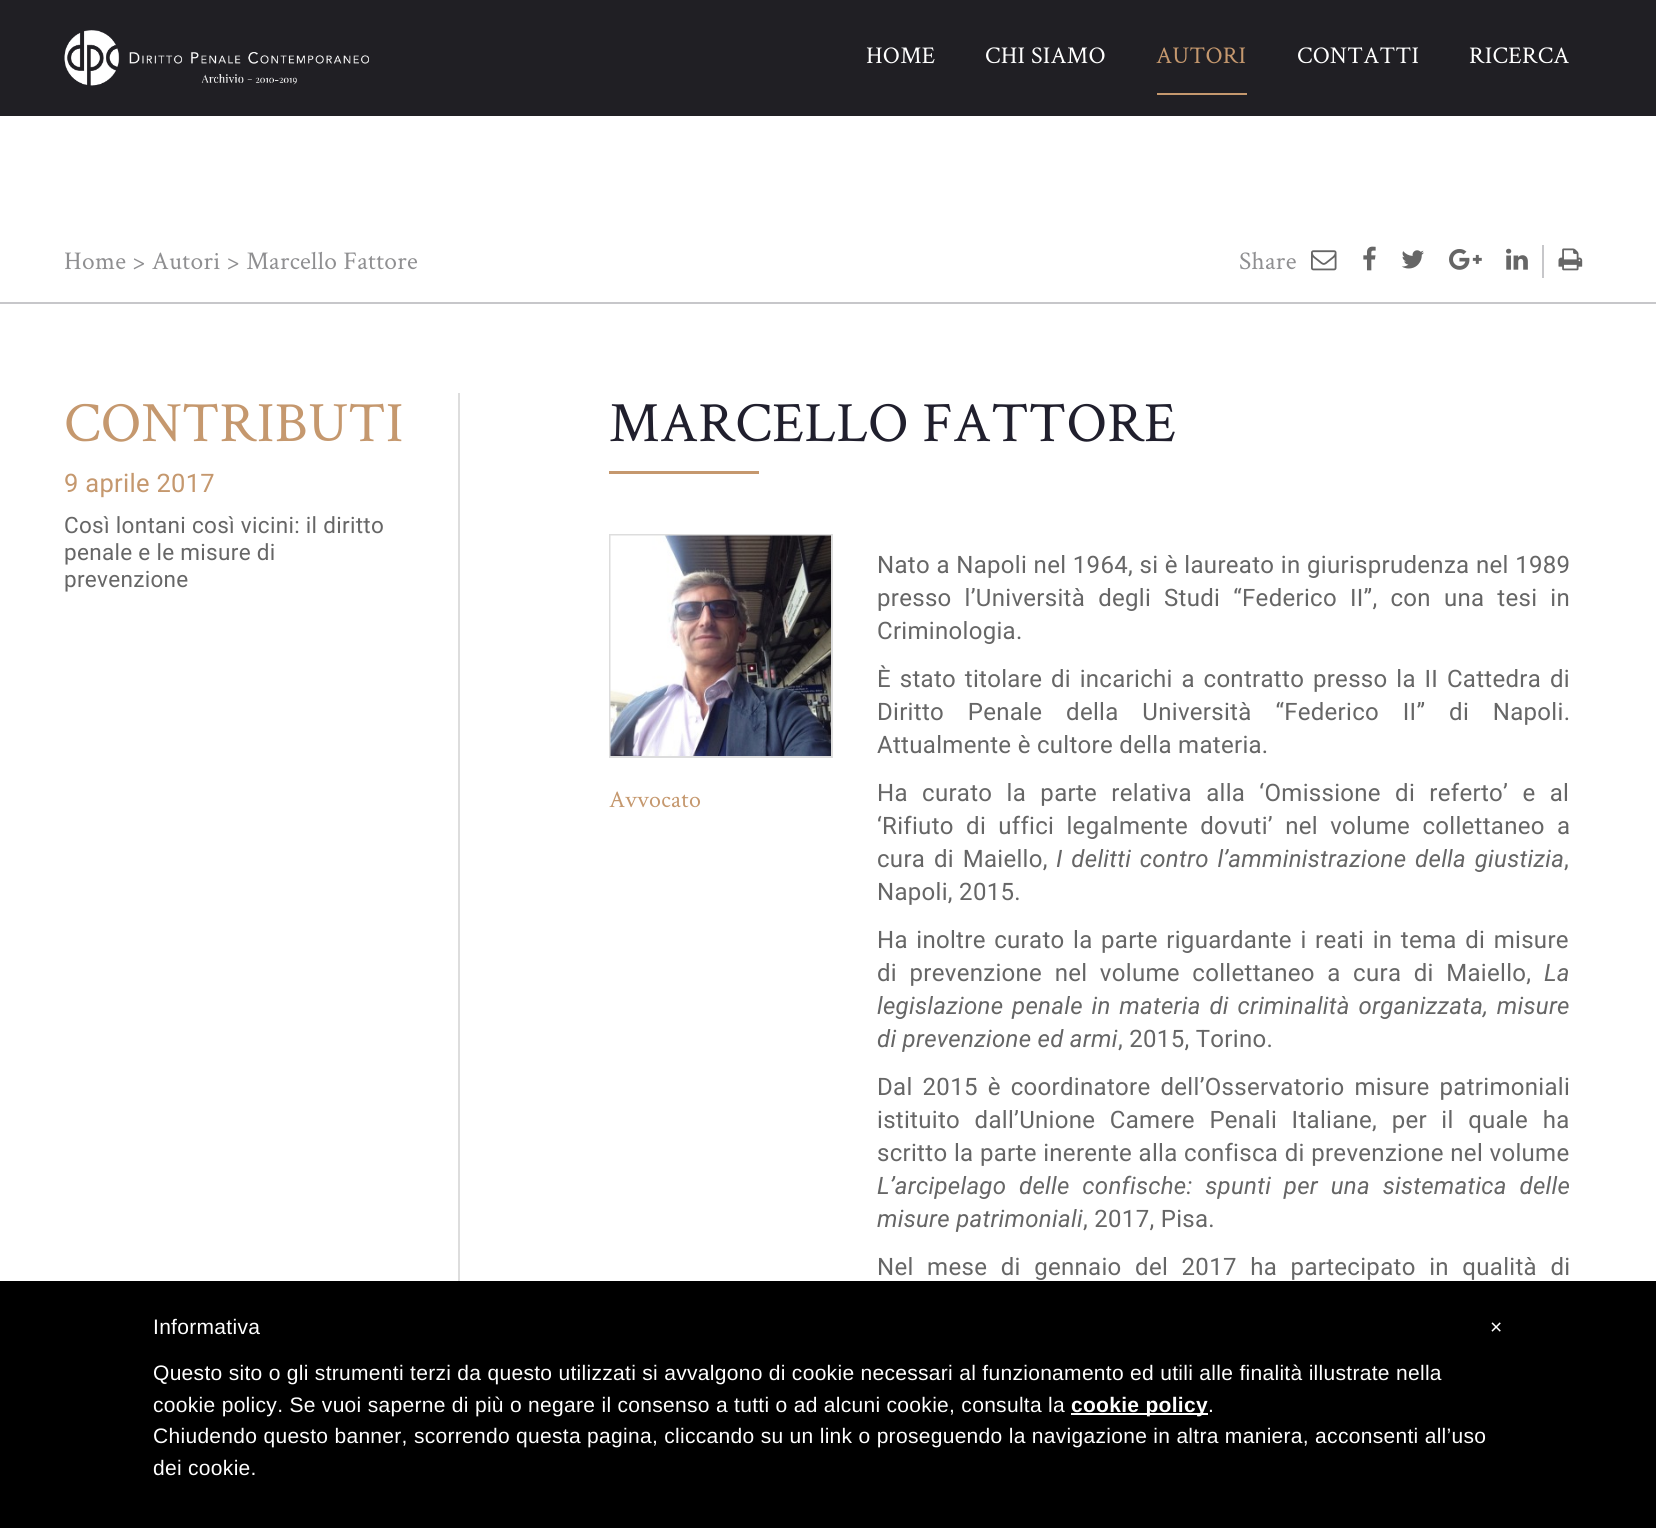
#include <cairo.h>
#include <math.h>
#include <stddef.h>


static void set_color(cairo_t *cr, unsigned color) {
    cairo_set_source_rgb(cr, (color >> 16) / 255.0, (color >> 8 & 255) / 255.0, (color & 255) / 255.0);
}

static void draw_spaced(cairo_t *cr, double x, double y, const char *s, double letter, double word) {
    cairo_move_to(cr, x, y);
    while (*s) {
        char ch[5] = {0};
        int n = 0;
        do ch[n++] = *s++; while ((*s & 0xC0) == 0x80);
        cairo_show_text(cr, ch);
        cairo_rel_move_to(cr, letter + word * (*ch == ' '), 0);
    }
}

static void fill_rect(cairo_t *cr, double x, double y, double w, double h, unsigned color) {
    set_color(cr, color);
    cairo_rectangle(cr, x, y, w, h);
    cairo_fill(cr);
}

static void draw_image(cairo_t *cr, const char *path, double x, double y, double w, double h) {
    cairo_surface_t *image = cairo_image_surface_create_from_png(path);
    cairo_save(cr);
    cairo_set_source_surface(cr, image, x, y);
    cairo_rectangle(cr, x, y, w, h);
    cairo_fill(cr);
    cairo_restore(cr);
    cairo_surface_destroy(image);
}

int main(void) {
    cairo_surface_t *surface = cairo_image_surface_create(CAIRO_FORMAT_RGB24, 1656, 1528);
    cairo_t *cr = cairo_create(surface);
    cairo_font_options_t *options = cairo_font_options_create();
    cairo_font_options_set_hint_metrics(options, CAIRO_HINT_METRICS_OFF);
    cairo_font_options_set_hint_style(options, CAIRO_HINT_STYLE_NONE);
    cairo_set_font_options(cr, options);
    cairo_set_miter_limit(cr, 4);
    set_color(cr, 0xFFFFFF);
    cairo_paint(cr);
    fill_rect(cr, 0, 0, 1656, 116, 0x201F24);
    draw_image(cr, "assets/img1.png", 64, 30, 305, 56);
    cairo_select_font_face(cr, "Crimson Text", CAIRO_FONT_SLANT_NORMAL, CAIRO_FONT_WEIGHT_NORMAL);
    cairo_set_font_size(cr, 24);
    set_color(cr, 0xFFFFFF);
    draw_spaced(cr, 866, 63, "HOME", 0.3, 0);
    draw_spaced(cr, 985, 63, "CHI SIAMO", 0.3, 0);
    set_color(cr, 0xC5986E);
    draw_spaced(cr, 1156, 63, "AUTORI", 0.3, 0);
    fill_rect(cr, 1157, 93, 90, 2, 0xC5986E);
    set_color(cr, 0xFFFFFF);
    draw_spaced(cr, 1297, 63, "CONTATTI", 0.3, 0);
    draw_spaced(cr, 1469, 63, "RICERCA", 0.3, 0);
    cairo_set_font_size(cr, 25.5);
    set_color(cr, 0x8F8F91);
    draw_spaced(cr, 64, 269, "Home > Autori > Marcello Fattore", 0.3, 0);
    draw_spaced(cr, 1239, 269, "Share", 0.3, 0);
    draw_image(cr, "assets/img2.png", 1311, 250, 26, 21);
    draw_image(cr, "assets/img3.png", 1363, 246, 13, 25);
    draw_image(cr, "assets/img4.png", 1401, 250, 23, 19);
    draw_image(cr, "assets/img5.png", 1449, 249, 33, 21);
    draw_image(cr, "assets/img6.png", 1506, 248, 22, 22);
    fill_rect(cr, 1542, 245, 2, 33, 0xC7C7CA);
    draw_image(cr, "assets/img7.png", 1558, 248, 25, 23);
    fill_rect(cr, 0, 302, 1656, 2, 0xC7C7CA);
    cairo_set_font_size(cr, 57);
    set_color(cr, 0xC5986E);
    draw_spaced(cr, 64, 441, "CONTRIBUTI", 0.3, 0);
    cairo_select_font_face(cr, "Roboto", CAIRO_FONT_SLANT_NORMAL, CAIRO_FONT_WEIGHT_NORMAL);
    cairo_set_font_size(cr, 25.5);
    draw_spaced(cr, 64, 492, "9 aprile 2017", 0.3, 0);
    cairo_set_font_size(cr, 22.5);
    set_color(cr, 0x666666);
    draw_spaced(cr, 64, 533, "Così lontani così vicini: il diritto", 0.3, 0);
    draw_spaced(cr, 64, 560, "penale e le misure di", 0.3, 0);
    draw_spaced(cr, 64, 587, "prevenzione", 0.3, 0);
    fill_rect(cr, 458, 393, 2, 888, 0xDDDDDD);
    cairo_select_font_face(cr, "Crimson Text", CAIRO_FONT_SLANT_NORMAL, CAIRO_FONT_WEIGHT_NORMAL);
    cairo_set_font_size(cr, 57);
    set_color(cr, 0x201F2D);
    draw_spaced(cr, 609, 441, "MARCELLO FATTORE", 0.3, 0);
    fill_rect(cr, 609, 471, 150, 3, 0xC5986E);
    cairo_rectangle(cr, 610, 535, 222, 222);
    set_color(cr, 0xDDDDDD);
    cairo_stroke(cr);
    draw_image(cr, "assets/img8.png", 610, 535, 221, 221);
    cairo_set_font_size(cr, 24);
    set_color(cr, 0xC5986E);
    draw_spaced(cr, 609, 807, "Avvocato", 0.3, 0);
    cairo_select_font_face(cr, "Roboto", CAIRO_FONT_SLANT_NORMAL, CAIRO_FONT_WEIGHT_NORMAL);
    set_color(cr, 0x666666);
    draw_spaced(cr, 877, 573, "Nato a Napoli nel 1964, si è laureato in giurisprudenza nel 1989", 0.3, 0.25);
    draw_spaced(cr, 877, 606, "presso l’Università degli Studi “Federico II”, con una tesi in", 0.3, 6.75);
    draw_spaced(cr, 877, 639, "Criminologia.", 0.3, 0);
    draw_spaced(cr, 877, 687, "È stato titolare di incarichi a contratto presso la II Cattedra di", 0.3, 2.5);
    draw_spaced(cr, 877, 720, "Diritto Penale della Università “Federico II” di Napoli.", 0.3, 17.5);
    draw_spaced(cr, 877, 753, "Attualmente è cultore della materia.", 0.3, 0);
    draw_spaced(cr, 877, 801, "Ha curato la parte relativa alla ‘Omissione di referto’ e al", 0.3, 8);
    draw_spaced(cr, 877, 834, "‘Rifiuto di uffici legalmente dovuti’ nel volume collettaneo a", 0.3, 6);
    draw_spaced(cr, 877, 867, "cura di Maiello,", 0.3, 2.5);
    cairo_select_font_face(cr, "Roboto", CAIRO_FONT_SLANT_ITALIC, CAIRO_FONT_WEIGHT_NORMAL);
    draw_spaced(cr, 1056, 867, "I delitti contro l’amministrazione della giustizia", 0.3, 2.5);
    cairo_select_font_face(cr, "Roboto", CAIRO_FONT_SLANT_NORMAL, CAIRO_FONT_WEIGHT_NORMAL);
    draw_spaced(cr, 1564, 867, ",", 0.3, 0);
    draw_spaced(cr, 877, 900, "Napoli, 2015.", 0.3, 0);
    draw_spaced(cr, 877, 948, "Ha inoltre curato la parte riguardante i reati in tema di misure", 0.3, 2.25);
    draw_spaced(cr, 877, 981, "di prevenzione nel volume collettaneo a cura di Maiello,", 0.3, 6.25);
    cairo_select_font_face(cr, "Roboto", CAIRO_FONT_SLANT_ITALIC, CAIRO_FONT_WEIGHT_NORMAL);
    draw_spaced(cr, 1544, 981, "La", 0.3, 0);
    draw_spaced(cr, 877, 1014, "legislazione penale in materia di criminalità organizzata, misure", 0.3, 2.5);
    draw_spaced(cr, 877, 1047, "di prevenzione ed armi", 0.3, 0);
    cairo_select_font_face(cr, "Roboto", CAIRO_FONT_SLANT_NORMAL, CAIRO_FONT_WEIGHT_NORMAL);
    draw_spaced(cr, 1118, 1047, ", 2015, Torino.", 0.3, 0);
    draw_spaced(cr, 877, 1095, "Dal 2015 è coordinatore dell’Osservatorio misure patrimoniali", 0.3, 3.75);
    draw_spaced(cr, 877, 1128, "istituito dall’Unione Camere Penali Italiane, per il quale ha", 0.3, 8.25);
    draw_spaced(cr, 877, 1161, "scritto la parte inerente alla confisca di prevenzione nel volume", 0.3, 0.25);
    cairo_select_font_face(cr, "Roboto", CAIRO_FONT_SLANT_ITALIC, CAIRO_FONT_WEIGHT_NORMAL);
    draw_spaced(cr, 877, 1194, "L’arcipelago delle confische: spunti per una sistematica delle", 0.3, 6.5);
    draw_spaced(cr, 877, 1227, "misure patrimoniali", 0.3, 0);
    cairo_select_font_face(cr, "Roboto", CAIRO_FONT_SLANT_NORMAL, CAIRO_FONT_WEIGHT_NORMAL);
    draw_spaced(cr, 1083, 1227, ", 2017, Pisa.", 0.3, 0);
    draw_spaced(cr, 877, 1275, "Nel mese di gennaio del 2017 ha partecipato in qualità di", 0.3, 7.25);
    fill_rect(cr, 0, 1281, 1656, 247, 0x000000);
    cairo_select_font_face(cr, "Liberation Sans", CAIRO_FONT_SLANT_NORMAL, CAIRO_FONT_WEIGHT_NORMAL);
    cairo_set_font_size(cr, 21);
    set_color(cr, 0xFFFFFF);
    draw_spaced(cr, 153, 1334, "Informativa", 0.3, 0);
    draw_spaced(cr, 153, 1380, "Questo sito o gli strumenti terzi da questo utilizzati si avvalgono di cookie necessari al funzionamento ed utili alle finalità illustrate nella", 0.3, 0);
    draw_spaced(cr, 153, 1412, "cookie policy. Se vuoi saperne di più o negare il consenso a tutti o ad alcuni cookie, consulta la", 0.3, 0);
    fill_rect(cr, 1071, 1413, 137, 2, 0xFFFFFF);
    cairo_select_font_face(cr, "Liberation Sans", CAIRO_FONT_SLANT_NORMAL, CAIRO_FONT_WEIGHT_BOLD);
    draw_spaced(cr, 1071, 1412, "cookie policy", 0.3, 0);
    cairo_select_font_face(cr, "Liberation Sans", CAIRO_FONT_SLANT_NORMAL, CAIRO_FONT_WEIGHT_NORMAL);
    draw_spaced(cr, 1208, 1412, ".", 0.3, 0);
    draw_spaced(cr, 153, 1443, "Chiudendo questo banner, scorrendo questa pagina, cliccando su un link o proseguendo la navigazione in altra maniera, acconsenti all’uso", 0.3, 0);
    draw_spaced(cr, 153, 1475, "dei cookie.", 0.3, 0);
    draw_spaced(cr, 1490, 1334, "×", 0.3, 0);
    cairo_surface_write_to_png(surface, "output.png");
    cairo_font_options_destroy(options);
    cairo_destroy(cr);
    cairo_surface_destroy(surface);
    return 0;
}
